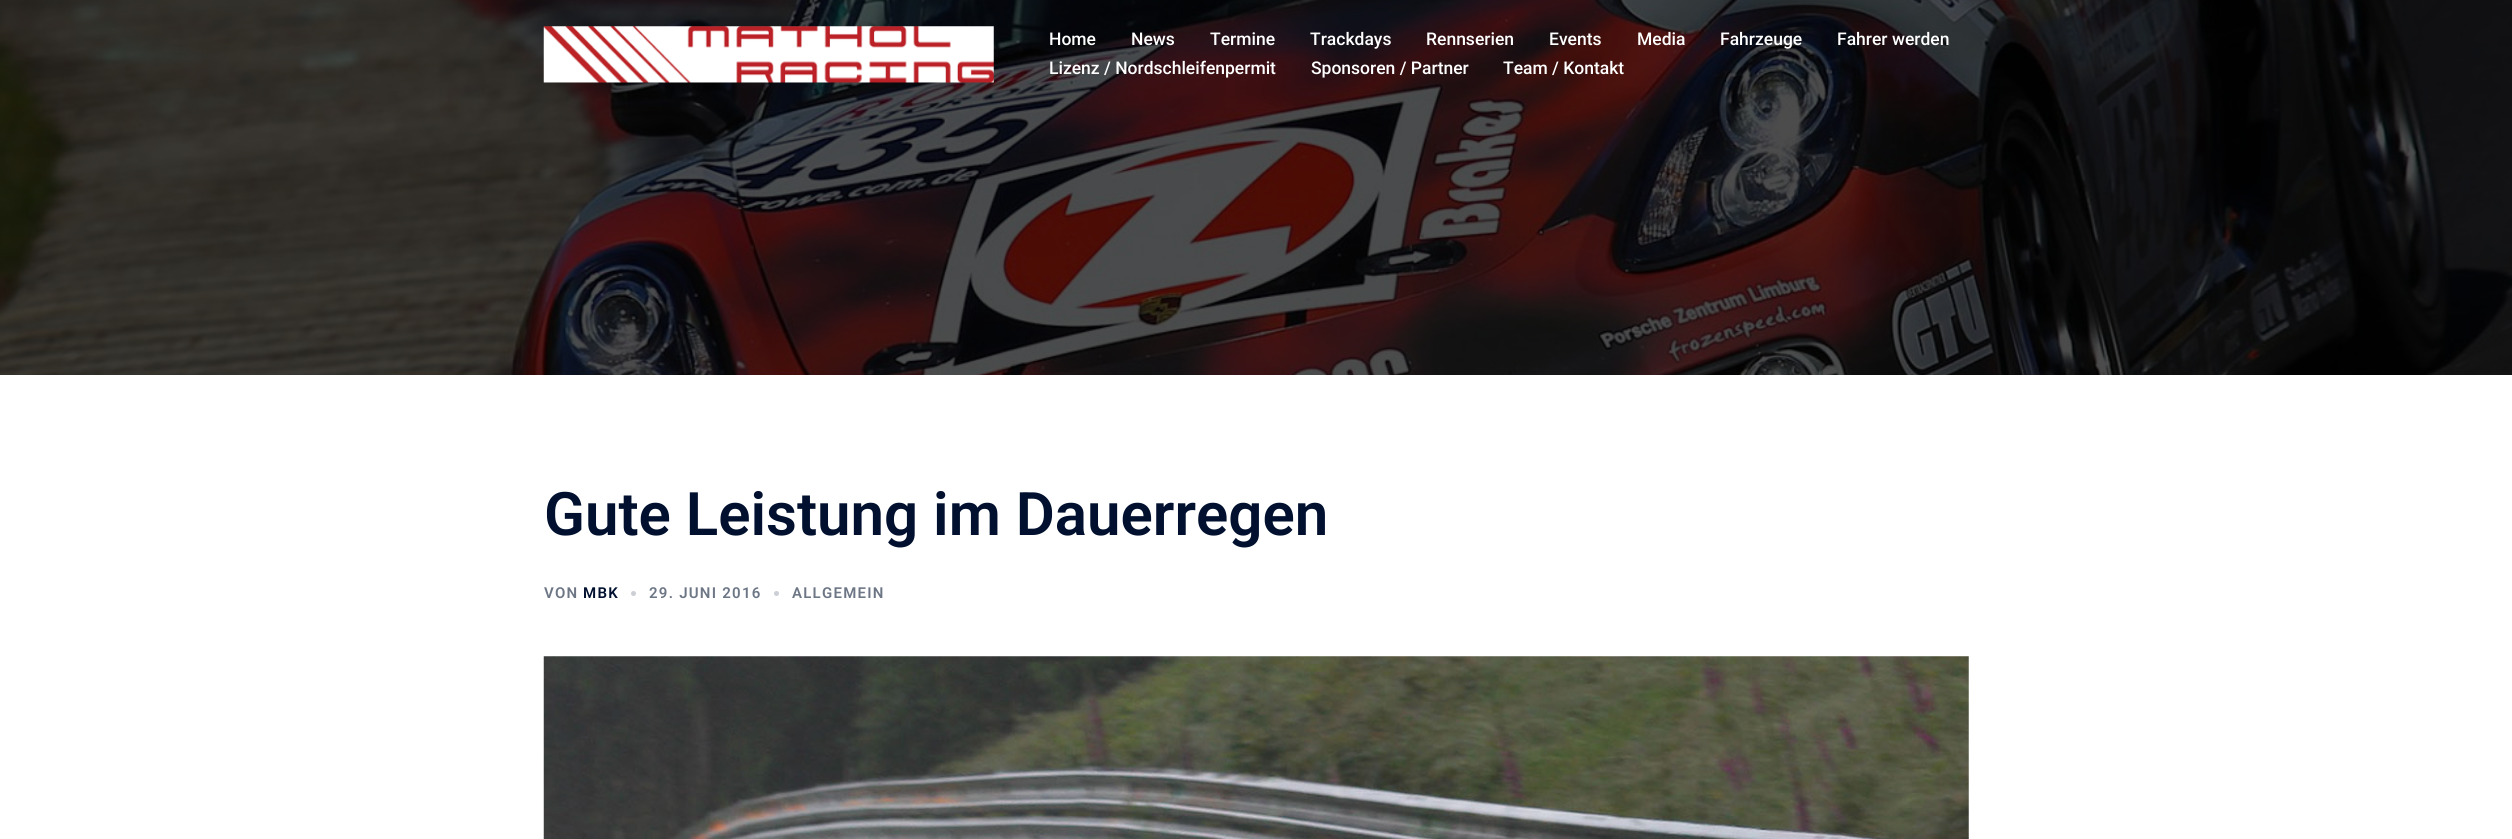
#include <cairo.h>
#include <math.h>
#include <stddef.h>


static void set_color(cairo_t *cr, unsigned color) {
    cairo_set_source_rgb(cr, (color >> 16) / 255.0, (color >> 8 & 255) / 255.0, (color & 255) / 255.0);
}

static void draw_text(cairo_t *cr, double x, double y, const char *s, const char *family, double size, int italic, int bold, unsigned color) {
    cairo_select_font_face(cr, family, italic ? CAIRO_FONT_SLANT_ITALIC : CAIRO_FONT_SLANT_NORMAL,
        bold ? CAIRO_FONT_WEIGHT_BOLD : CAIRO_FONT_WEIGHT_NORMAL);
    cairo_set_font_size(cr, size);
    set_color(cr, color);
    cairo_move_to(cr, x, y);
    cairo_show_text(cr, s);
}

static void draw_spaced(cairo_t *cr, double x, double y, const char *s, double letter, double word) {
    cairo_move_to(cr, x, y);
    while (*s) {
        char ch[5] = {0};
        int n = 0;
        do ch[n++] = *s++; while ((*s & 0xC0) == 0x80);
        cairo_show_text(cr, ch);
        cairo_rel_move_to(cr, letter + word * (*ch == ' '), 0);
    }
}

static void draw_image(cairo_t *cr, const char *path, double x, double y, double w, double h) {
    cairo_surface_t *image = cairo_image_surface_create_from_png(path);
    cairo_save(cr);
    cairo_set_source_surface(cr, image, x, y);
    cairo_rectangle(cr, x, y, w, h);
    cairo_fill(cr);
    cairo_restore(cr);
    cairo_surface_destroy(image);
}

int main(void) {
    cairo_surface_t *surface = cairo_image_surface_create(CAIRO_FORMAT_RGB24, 2512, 839);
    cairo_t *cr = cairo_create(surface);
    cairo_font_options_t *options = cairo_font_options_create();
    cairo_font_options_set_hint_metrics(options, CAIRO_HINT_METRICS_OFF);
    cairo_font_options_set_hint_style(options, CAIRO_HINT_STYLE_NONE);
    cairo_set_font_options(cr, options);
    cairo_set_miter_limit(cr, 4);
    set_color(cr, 0xFFFFFF);
    cairo_paint(cr);
    draw_image(cr, "assets/img1.png", 0, 0, 2512, 375);
    draw_image(cr, "assets/img2.png", 543, 26, 451, 57);
    draw_text(cr, 1049, 45, "Home", "Roboto Medium", 17.5, 0, 0, 0xFFFFFF);
    draw_text(cr, 1131, 45, "News", "Roboto Medium", 17.5, 0, 0, 0xFFFFFF);
    draw_text(cr, 1210, 45, "Termine", "Roboto Medium", 17.5, 0, 0, 0xFFFFFF);
    draw_text(cr, 1310, 45, "Trackdays", "Roboto Medium", 17.5, 0, 0, 0xFFFFFF);
    draw_text(cr, 1426, 45, "Rennserien", "Roboto Medium", 17.5, 0, 0, 0xFFFFFF);
    draw_text(cr, 1549, 45, "Events", "Roboto Medium", 17.5, 0, 0, 0xFFFFFF);
    draw_text(cr, 1637, 45, "Media", "Roboto Medium", 17.5, 0, 0, 0xFFFFFF);
    draw_text(cr, 1720, 45, "Fahrzeuge", "Roboto Medium", 17.5, 0, 0, 0xFFFFFF);
    draw_text(cr, 1837, 45, "Fahrer werden", "Roboto Medium", 17.5, 0, 0, 0xFFFFFF);
    draw_text(cr, 1049, 74, "Lizenz / Nordschleifenpermit", "Roboto Medium", 17.5, 0, 0, 0xFFFFFF);
    draw_text(cr, 1311, 74, "Sponsoren / Partner", "Roboto Medium", 17.5, 0, 0, 0xFFFFFF);
    draw_text(cr, 1503, 74, "Team / Kontakt", "Roboto Medium", 17.5, 0, 0, 0xFFFFFF);
    draw_text(cr, 544, 535, "Gute Leistung im Dauerregen", "Roboto SemiBold", 60, 0, 0, 0x00102E);
    cairo_set_font_size(cr, 15);
    set_color(cr, 0x6D7685);
    draw_spaced(cr, 544, 598, "VON", 1.25, 0);
    set_color(cr, 0x00102E);
    draw_spaced(cr, 583, 598, "MBK", 1.25, 0);
    set_color(cr, 0xCCCFD5);
    cairo_new_path(cr);
    cairo_arc(cr, 633.5, 593.5, 2.5, 0, 2 * M_PI);
    cairo_fill(cr);
    set_color(cr, 0x6D7685);
    draw_spaced(cr, 649, 598, "29. JUNI 2016", 1.25, 0);
    set_color(cr, 0xCCCFD5);
    cairo_new_path(cr);
    cairo_arc(cr, 776.5, 593.5, 2.5, 0, 2 * M_PI);
    cairo_fill(cr);
    set_color(cr, 0x6D7685);
    draw_spaced(cr, 792, 598, "ALLGEMEIN", 1.25, 0);
    draw_image(cr, "assets/img3.png", 543, 656, 1426, 183);
    cairo_surface_write_to_png(surface, "output.png");
    cairo_font_options_destroy(options);
    cairo_destroy(cr);
    cairo_surface_destroy(surface);
    return 0;
}
